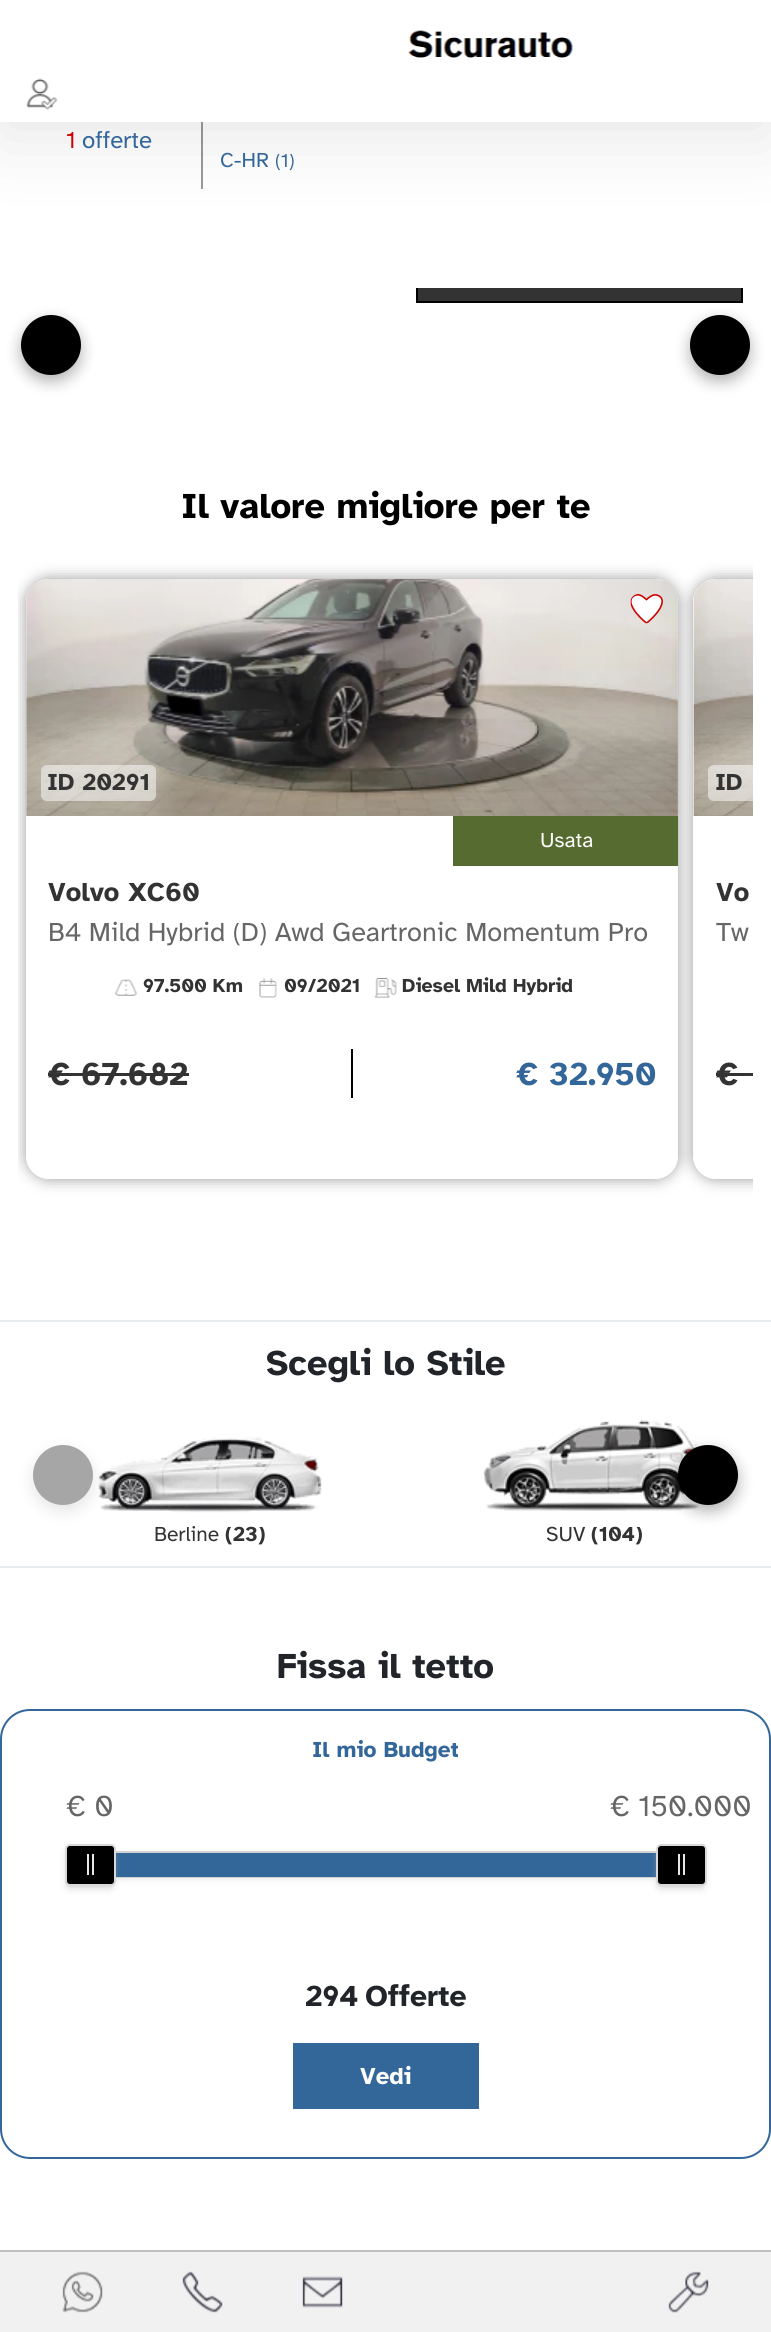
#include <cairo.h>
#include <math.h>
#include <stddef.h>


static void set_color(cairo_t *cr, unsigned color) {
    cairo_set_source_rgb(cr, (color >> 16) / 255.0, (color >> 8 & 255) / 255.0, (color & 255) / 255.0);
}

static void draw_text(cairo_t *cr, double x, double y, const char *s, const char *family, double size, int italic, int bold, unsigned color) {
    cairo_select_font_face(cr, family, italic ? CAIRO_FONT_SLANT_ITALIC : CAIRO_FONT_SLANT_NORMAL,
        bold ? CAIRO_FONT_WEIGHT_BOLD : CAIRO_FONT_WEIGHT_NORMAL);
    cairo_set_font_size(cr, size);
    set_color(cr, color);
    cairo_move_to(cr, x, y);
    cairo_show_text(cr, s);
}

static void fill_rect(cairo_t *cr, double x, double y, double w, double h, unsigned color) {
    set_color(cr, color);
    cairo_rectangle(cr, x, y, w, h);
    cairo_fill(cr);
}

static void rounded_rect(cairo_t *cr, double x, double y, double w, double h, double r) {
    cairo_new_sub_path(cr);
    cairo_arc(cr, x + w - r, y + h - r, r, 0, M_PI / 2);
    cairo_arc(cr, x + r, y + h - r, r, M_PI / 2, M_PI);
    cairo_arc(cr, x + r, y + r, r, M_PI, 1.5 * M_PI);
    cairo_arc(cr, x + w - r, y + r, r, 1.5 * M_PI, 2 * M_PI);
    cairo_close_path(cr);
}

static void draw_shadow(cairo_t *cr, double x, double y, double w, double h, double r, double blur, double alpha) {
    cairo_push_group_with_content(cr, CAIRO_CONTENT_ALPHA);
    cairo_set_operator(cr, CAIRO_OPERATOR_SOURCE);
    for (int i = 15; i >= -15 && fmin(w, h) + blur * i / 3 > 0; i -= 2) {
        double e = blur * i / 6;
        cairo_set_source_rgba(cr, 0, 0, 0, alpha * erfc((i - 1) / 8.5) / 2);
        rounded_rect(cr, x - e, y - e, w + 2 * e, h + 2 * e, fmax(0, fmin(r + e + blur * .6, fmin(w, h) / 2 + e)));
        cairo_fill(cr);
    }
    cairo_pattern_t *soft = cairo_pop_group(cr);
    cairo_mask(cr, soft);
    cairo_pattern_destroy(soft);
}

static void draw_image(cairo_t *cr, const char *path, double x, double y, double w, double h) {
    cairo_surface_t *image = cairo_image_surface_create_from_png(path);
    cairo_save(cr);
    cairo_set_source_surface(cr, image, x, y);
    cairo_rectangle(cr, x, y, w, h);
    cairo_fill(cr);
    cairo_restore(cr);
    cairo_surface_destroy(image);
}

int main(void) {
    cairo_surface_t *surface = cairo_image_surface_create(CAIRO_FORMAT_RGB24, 771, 2332);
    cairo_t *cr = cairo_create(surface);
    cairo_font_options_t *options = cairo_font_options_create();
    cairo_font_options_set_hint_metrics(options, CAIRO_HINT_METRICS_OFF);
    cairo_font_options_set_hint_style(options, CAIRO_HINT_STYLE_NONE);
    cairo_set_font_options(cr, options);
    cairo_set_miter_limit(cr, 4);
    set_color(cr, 0xFFFFFF);
    cairo_paint(cr);
    fill_rect(cr, 201, 122, 2, 67, 0x999999);
    fill_rect(cr, 418, 288, 323, 13, 0x333333);
    cairo_save(cr);
    cairo_rectangle(cr, 6, 288, 759, 120);
    cairo_clip(cr);
    cairo_rectangle(cr, 417, 241, 325, 61);
    set_color(cr, 0x000000);
    cairo_stroke(cr);
    cairo_restore(cr);
    set_color(cr, 0x000000);
    draw_shadow(cr, 0, 15, 771, 122, 0, 37.5, 0.1);
    fill_rect(cr, 0, 0, 771, 122, 0xFFFFFF);
    draw_image(cr, "assets/img1.png", 408, 30, 166, 28);
    draw_image(cr, "assets/img2.png", 26, 78, 32, 32);
    draw_text(cr, 66, 148, "1", "Atkinson Hyperlegible", 24, 0, 0, 0xCC0000);
    draw_text(cr, 82, 148, "offerte", "Atkinson Hyperlegible", 24, 0, 0, 0x336699);
    draw_text(cr, 220, 167, "C-HR", "Atkinson Hyperlegible", 21, 0, 0, 0x336699);
    draw_text(cr, 275, 167, "(1)", "Atkinson Hyperlegible", 19.5, 0, 0, 0x336699);
    set_color(cr, 0x000000);
    draw_shadow(cr, 21, 321, 60, 60, 30, 7.5, 0.3);
    set_color(cr, 0x000000);
    cairo_arc(cr, 51, 345, 30, 0, 2 * M_PI);
    cairo_fill(cr);
    set_color(cr, 0x000000);
    draw_shadow(cr, 690, 321, 60, 60, 30, 7.5, 0.3);
    set_color(cr, 0x000000);
    cairo_arc(cr, 720, 345, 30, 0, 2 * M_PI);
    cairo_fill(cr);
    draw_text(cr, 181, 518, "Il valore migliore per te", "Atkinson Hyperlegible", 36, 0, 1, 0x000000);
    cairo_save(cr);
    cairo_rectangle(cr, 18, 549, 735, 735);
    cairo_clip(cr);
    cairo_set_fill_rule(cr, CAIRO_FILL_RULE_EVEN_ODD);
    cairo_new_path(cr);
    cairo_move_to(cr, 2, 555);
    cairo_line_to(cr, 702, 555);
    cairo_line_to(cr, 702, 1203);
    cairo_line_to(cr, 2, 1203);
    cairo_close_path(cr);
    cairo_move_to(cr, 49, 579);
    cairo_line_to(cr, 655, 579);
    cairo_curve_to(cr, 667.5, 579, 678, 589.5, 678, 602);
    cairo_line_to(cr, 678, 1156);
    cairo_curve_to(cr, 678, 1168.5, 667.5, 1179, 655, 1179);
    cairo_line_to(cr, 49, 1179);
    cairo_curve_to(cr, 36.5, 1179, 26, 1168.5, 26, 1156);
    cairo_line_to(cr, 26, 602);
    cairo_curve_to(cr, 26, 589.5, 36.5, 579, 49, 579);
    cairo_close_path(cr);
    cairo_clip(cr);
    set_color(cr, 0x999999);
    draw_shadow(cr, 26, 579, 652, 600, 23, 7.5, 1);
    cairo_restore(cr);
    draw_image(cr, "assets/img3.png", 26, 579, 652, 237);
    draw_image(cr, "assets/img4.png", 630, 594, 33, 30);
    cairo_set_source_rgba(cr, 1, 1, 1, 0.5);
    rounded_rect(cr, 41, 765, 115, 36, 6);
    cairo_fill(cr);
    draw_text(cr, 47, 790, "ID 20291", "Atkinson Hyperlegible", 24, 0, 1, 0x333333);
    fill_rect(cr, 453, 816, 225, 50, 0x556B2F);
    draw_text(cr, 540, 847, "Usata", "Atkinson Hyperlegible", 21, 0, 0, 0xFFFFFF);
    draw_text(cr, 48, 901, "Volvo XC60", "Atkinson Hyperlegible", 27, 0, 1, 0x333333);
    draw_text(cr, 48, 941, "B4 Mild Hybrid (D) Awd Geartronic Momentum Pro", "Atkinson Hyperlegible", 27, 0, 0, 0x666666);
    draw_image(cr, "assets/img5.png", 115, 979, 22, 17);
    draw_text(cr, 143, 992, "97.500 Km", "Atkinson Hyperlegible", 19.5, 0, 1, 0x333333);
    draw_image(cr, "assets/img6.png", 259, 978, 18, 20);
    draw_text(cr, 284, 992, "09/2021", "Atkinson Hyperlegible", 19.5, 0, 1, 0x333333);
    draw_image(cr, "assets/img7.png", 374, 978, 23, 20);
    draw_text(cr, 402, 992, "Diesel Mild Hybrid", "Atkinson Hyperlegible", 19.5, 0, 1, 0x333333);
    fill_rect(cr, 351, 1049, 2, 49, 0x000000);
    draw_text(cr, 48, 1085, "€ 67.682", "Atkinson Hyperlegible", 33, 0, 1, 0x333333);
    fill_rect(cr, 48, 1073, 141, 3, 0x333333);
    draw_text(cr, 516, 1085, "€ 32.950", "Atkinson Hyperlegible", 33, 0, 1, 0x336699);
    cairo_save(cr);
    cairo_rectangle(cr, 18, 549, 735, 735);
    cairo_clip(cr);
    cairo_set_fill_rule(cr, CAIRO_FILL_RULE_EVEN_ODD);
    cairo_new_path(cr);
    cairo_move_to(cr, 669, 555);
    cairo_line_to(cr, 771, 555);
    cairo_line_to(cr, 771, 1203);
    cairo_line_to(cr, 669, 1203);
    cairo_close_path(cr);
    cairo_move_to(cr, 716, 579);
    cairo_line_to(cr, 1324, 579);
    cairo_curve_to(cr, 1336.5, 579, 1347, 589.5, 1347, 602);
    cairo_line_to(cr, 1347, 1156);
    cairo_curve_to(cr, 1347, 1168.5, 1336.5, 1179, 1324, 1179);
    cairo_line_to(cr, 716, 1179);
    cairo_curve_to(cr, 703.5, 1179, 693, 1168.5, 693, 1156);
    cairo_line_to(cr, 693, 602);
    cairo_curve_to(cr, 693, 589.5, 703.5, 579, 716, 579);
    cairo_close_path(cr);
    cairo_clip(cr);
    set_color(cr, 0x999999);
    draw_shadow(cr, 693, 579, 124, 600, 23, 7.5, 1);
    cairo_restore(cr);
    draw_image(cr, "assets/img8.png", 693, 579, 60, 237);
    cairo_set_source_rgba(cr, 1, 1, 1, 0.5);
    cairo_new_path(cr);
    cairo_move_to(cr, 714, 765);
    cairo_line_to(cr, 753, 765);
    cairo_line_to(cr, 753, 801);
    cairo_line_to(cr, 714, 801);
    cairo_curve_to(cr, 710.5, 801, 708, 798.5, 708, 795);
    cairo_line_to(cr, 708, 771);
    cairo_curve_to(cr, 708, 767.5, 710.5, 765, 714, 765);
    cairo_close_path(cr);
    cairo_fill(cr);
    draw_text(cr, 715, 790, "ID", "Atkinson Hyperlegible", 24, 0, 1, 0x333333);
    draw_text(cr, 716, 901, "Vo", "Atkinson Hyperlegible", 27, 0, 1, 0x333333);
    draw_text(cr, 716, 941, "Tw", "Atkinson Hyperlegible", 27, 0, 0, 0x666666);
    draw_text(cr, 716, 1085, "€", "Atkinson Hyperlegible", 33, 0, 1, 0x333333);
    fill_rect(cr, 716, 1073, 37, 3, 0x333333);
    fill_rect(cr, 0, 1320, 771, 2, 0xE9ECEF);
    fill_rect(cr, 0, 1566, 771, 2, 0xE9ECEF);
    draw_text(cr, 266, 1375, "Scegli lo Stile", "Atkinson Hyperlegible", 36, 0, 1, 0x212529);
    draw_image(cr, "assets/img9.png", 98, 1437, 224, 76);
    set_color(cr, 0x000000);
    draw_shadow(cr, 33, 1451, 60, 60, 30, 7.5, 0.1);
    set_color(cr, 0xA6A6A6);
    cairo_arc(cr, 63, 1475, 30, 0, 2 * M_PI);
    cairo_fill(cr);
    draw_text(cr, 154, 1541, "Berline", "Atkinson Hyperlegible", 21, 0, 0, 0x333333);
    draw_text(cr, 225, 1541, "(23)", "Atkinson Hyperlegible", 21, 0, 1, 0x333333);
    draw_image(cr, "assets/img10.png", 483, 1420, 218, 91);
    draw_text(cr, 546, 1541, "SUV", "Atkinson Hyperlegible", 21, 0, 0, 0x333333);
    draw_text(cr, 591, 1541, "(104)", "Atkinson Hyperlegible", 21, 0, 1, 0x333333);
    set_color(cr, 0x000000);
    draw_shadow(cr, 678, 1451, 60, 60, 30, 7.5, 0.3);
    set_color(cr, 0x000000);
    cairo_arc(cr, 708, 1475, 30, 0, 2 * M_PI);
    cairo_fill(cr);
    draw_text(cr, 277, 1678, "Fissa il tetto", "Atkinson Hyperlegible", 36, 0, 1, 0x212529);
    rounded_rect(cr, 1, 1710, 769, 448, 29);
    set_color(cr, 0x336699);
    cairo_stroke(cr);
    draw_text(cr, 312, 1757, "Il mio Budget", "Atkinson Hyperlegible", 22.5, 0, 1, 0x336699);
    set_color(cr, 0xBBBBBB);
    draw_shadow(cr, 96, 1863, 579, 12, 0, 4.5, 1);
    cairo_rectangle(cr, 90, 1852, 592, 25);
    set_color(cr, 0xD3D3D3);
    cairo_stroke(cr);
    fill_rect(cr, 116, 1853, 540, 24, 0x336699);
    set_color(cr, 0xBBBBBB);
    draw_shadow(cr, 69, 1853, 42, 33, 0, 4.5, 1);
    set_color(cr, 0x000000);
    rounded_rect(cr, 66, 1845, 49, 40, 4);
    cairo_fill_preserve(cr);
    set_color(cr, 0xD9D9D9);
    cairo_stroke(cr);
    draw_text(cr, 66, 1816, "€ 0", "Atkinson Hyperlegible", 30, 0, 0, 0x666666);
    fill_rect(cr, 87, 1854, 2, 21, 0xE8E7E6);
    fill_rect(cr, 92, 1854, 2, 21, 0xE8E7E6);
    set_color(cr, 0xBBBBBB);
    draw_shadow(cr, 660, 1853, 42, 33, 0, 4.5, 1);
    set_color(cr, 0x000000);
    rounded_rect(cr, 657, 1845, 49, 40, 4);
    cairo_fill_preserve(cr);
    set_color(cr, 0xD9D9D9);
    cairo_stroke(cr);
    draw_text(cr, 610, 1816, "€ 150.000", "Atkinson Hyperlegible", 30, 0, 0, 0x666666);
    fill_rect(cr, 678, 1854, 2, 21, 0xE8E7E6);
    fill_rect(cr, 683, 1854, 2, 21, 0xE8E7E6);
    draw_text(cr, 305, 2006, "294", "Atkinson Hyperlegible", 30, 0, 1, 0x212529);
    draw_text(cr, 365, 2006, "Offerte", "Atkinson Hyperlegible", 30, 0, 1, 0x212529);
    fill_rect(cr, 293, 2043, 186, 66, 0x336699);
    draw_text(cr, 360, 2084, "Vedi", "Atkinson Hyperlegible", 24, 0, 1, 0xFFFFFF);
    fill_rect(cr, 0, 2252, 771, 80, 0xF1F1F1);
    fill_rect(cr, 0, 2250, 771, 2, 0xC0C0C0);
    draw_image(cr, "assets/img11.png", 62, 2271, 41, 42);
    draw_image(cr, "assets/img12.png", 182, 2271, 41, 42);
    draw_image(cr, "assets/img13.png", 302, 2276, 41, 32);
    draw_image(cr, "assets/img14.png", 668, 2271, 41, 42);
    cairo_surface_write_to_png(surface, "output.png");
    cairo_font_options_destroy(options);
    cairo_destroy(cr);
    cairo_surface_destroy(surface);
    return 0;
}
